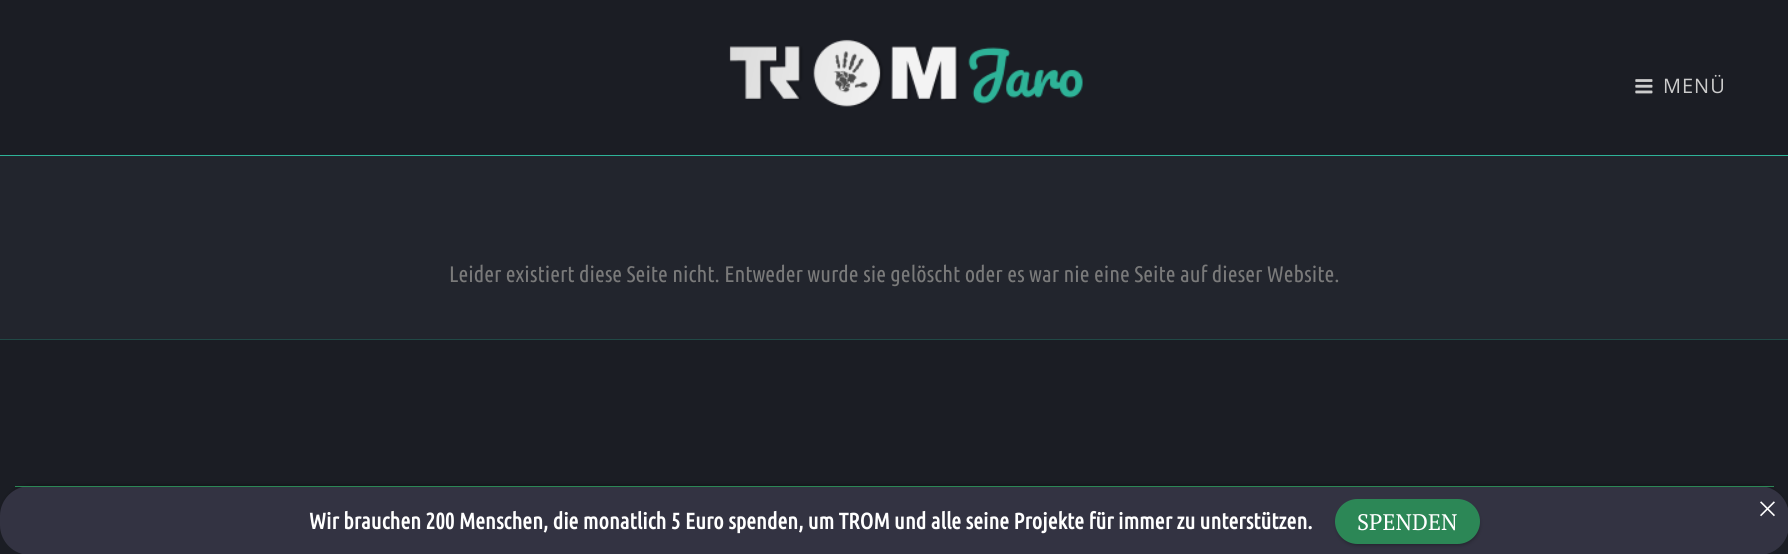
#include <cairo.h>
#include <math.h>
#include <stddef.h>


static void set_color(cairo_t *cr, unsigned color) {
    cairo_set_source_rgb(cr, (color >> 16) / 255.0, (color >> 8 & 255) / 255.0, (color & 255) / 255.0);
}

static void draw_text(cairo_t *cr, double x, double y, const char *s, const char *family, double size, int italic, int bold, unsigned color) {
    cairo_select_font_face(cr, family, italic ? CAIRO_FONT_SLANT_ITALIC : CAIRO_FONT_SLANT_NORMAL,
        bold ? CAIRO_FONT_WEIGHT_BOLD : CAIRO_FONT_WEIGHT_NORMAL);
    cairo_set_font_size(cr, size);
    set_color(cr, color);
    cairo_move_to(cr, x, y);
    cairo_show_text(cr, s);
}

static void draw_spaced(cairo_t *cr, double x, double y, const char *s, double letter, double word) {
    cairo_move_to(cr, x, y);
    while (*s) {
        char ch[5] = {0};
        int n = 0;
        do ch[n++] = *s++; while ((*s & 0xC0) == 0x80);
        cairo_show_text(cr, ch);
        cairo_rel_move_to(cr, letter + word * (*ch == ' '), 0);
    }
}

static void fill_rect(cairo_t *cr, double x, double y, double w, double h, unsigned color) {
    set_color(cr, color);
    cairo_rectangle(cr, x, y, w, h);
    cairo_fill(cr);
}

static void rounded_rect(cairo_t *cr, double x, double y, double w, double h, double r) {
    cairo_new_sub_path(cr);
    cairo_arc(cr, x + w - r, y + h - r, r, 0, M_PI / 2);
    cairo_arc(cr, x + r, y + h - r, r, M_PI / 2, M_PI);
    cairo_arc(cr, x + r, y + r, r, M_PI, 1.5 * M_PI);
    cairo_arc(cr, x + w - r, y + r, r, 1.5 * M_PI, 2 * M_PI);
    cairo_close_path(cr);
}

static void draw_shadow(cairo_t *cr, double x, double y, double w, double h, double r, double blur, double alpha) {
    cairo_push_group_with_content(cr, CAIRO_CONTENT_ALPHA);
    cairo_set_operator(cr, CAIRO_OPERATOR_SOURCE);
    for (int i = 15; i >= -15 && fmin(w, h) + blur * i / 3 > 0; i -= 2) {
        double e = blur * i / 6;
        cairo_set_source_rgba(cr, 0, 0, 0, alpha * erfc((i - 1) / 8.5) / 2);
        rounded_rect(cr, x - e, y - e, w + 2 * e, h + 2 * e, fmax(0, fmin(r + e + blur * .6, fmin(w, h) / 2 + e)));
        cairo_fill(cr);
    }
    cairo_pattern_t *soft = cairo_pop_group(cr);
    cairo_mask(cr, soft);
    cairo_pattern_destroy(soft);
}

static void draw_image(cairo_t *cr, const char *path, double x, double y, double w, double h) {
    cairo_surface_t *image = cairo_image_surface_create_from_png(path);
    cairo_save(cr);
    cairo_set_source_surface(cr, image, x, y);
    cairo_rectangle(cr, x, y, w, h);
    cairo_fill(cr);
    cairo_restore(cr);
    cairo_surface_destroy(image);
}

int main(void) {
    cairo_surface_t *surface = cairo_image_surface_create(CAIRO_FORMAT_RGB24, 1788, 554);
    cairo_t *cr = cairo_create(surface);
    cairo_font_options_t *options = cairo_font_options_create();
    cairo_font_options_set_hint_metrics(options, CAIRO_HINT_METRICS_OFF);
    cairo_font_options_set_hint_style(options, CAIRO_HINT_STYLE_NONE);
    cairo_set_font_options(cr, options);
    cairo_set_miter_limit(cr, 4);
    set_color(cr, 0x1B1D24);
    cairo_paint(cr);
    fill_rect(cr, 0, 155, 1788, 1, 0x2EB398);
    draw_image(cr, "assets/img1.png", 729, 39, 354, 68);
    draw_image(cr, "assets/img2.png", 1635, 79, 18, 15);
    cairo_select_font_face(cr, "Open Sans", CAIRO_FONT_SLANT_NORMAL, CAIRO_FONT_WEIGHT_NORMAL);
    cairo_set_font_size(cr, 20);
    set_color(cr, 0xCCCCCC);
    draw_spaced(cr, 1663, 93, "MENÜ", 1, 0);
    fill_rect(cr, 0, 156, 1788, 183, 0x22252D);
    draw_text(cr, 449, 282, "Leider existiert diese Seite nicht. Entweder wurde sie gelöscht oder es war nie eine Seite auf dieser Website.", "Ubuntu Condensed", 22.5, 0, 0, 0x7A7A7A);
    fill_rect(cr, 0, 339, 1788, 1, 0x214946);
    set_color(cr, 0x000000);
    draw_shadow(cr, 3, 486, 1783, 64, 28, 2.5, 0.5);
    set_color(cr, 0x333342);
    rounded_rect(cr, 0, 486, 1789, 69, 30);
    cairo_fill(cr);
    fill_rect(cr, 15, 486, 1759, 1, 0x2C8756);
    draw_image(cr, "assets/img3.png", 1760, 501, 15, 16);
    draw_text(cr, 309, 529, "Wir brauchen 200 Menschen, die monatlich 5 Euro spenden, um TROM und alle seine Projekte für immer zu unterstützen.", "Ubuntu Condensed", 22.5, 0, 1, 0xFFFFFF);
    set_color(cr, 0x000000);
    draw_shadow(cr, 1338, 504, 140, 40, 20, 2.5, 0.5);
    set_color(cr, 0x2C8756);
    rounded_rect(cr, 1335, 499, 145, 45, 22.5);
    cairo_fill(cr);
    draw_text(cr, 1357, 530, "SPENDEN", "PT Serif", 22.5, 0, 0, 0xFFFFFF);
    cairo_surface_write_to_png(surface, "output.png");
    cairo_font_options_destroy(options);
    cairo_destroy(cr);
    cairo_surface_destroy(surface);
    return 0;
}
